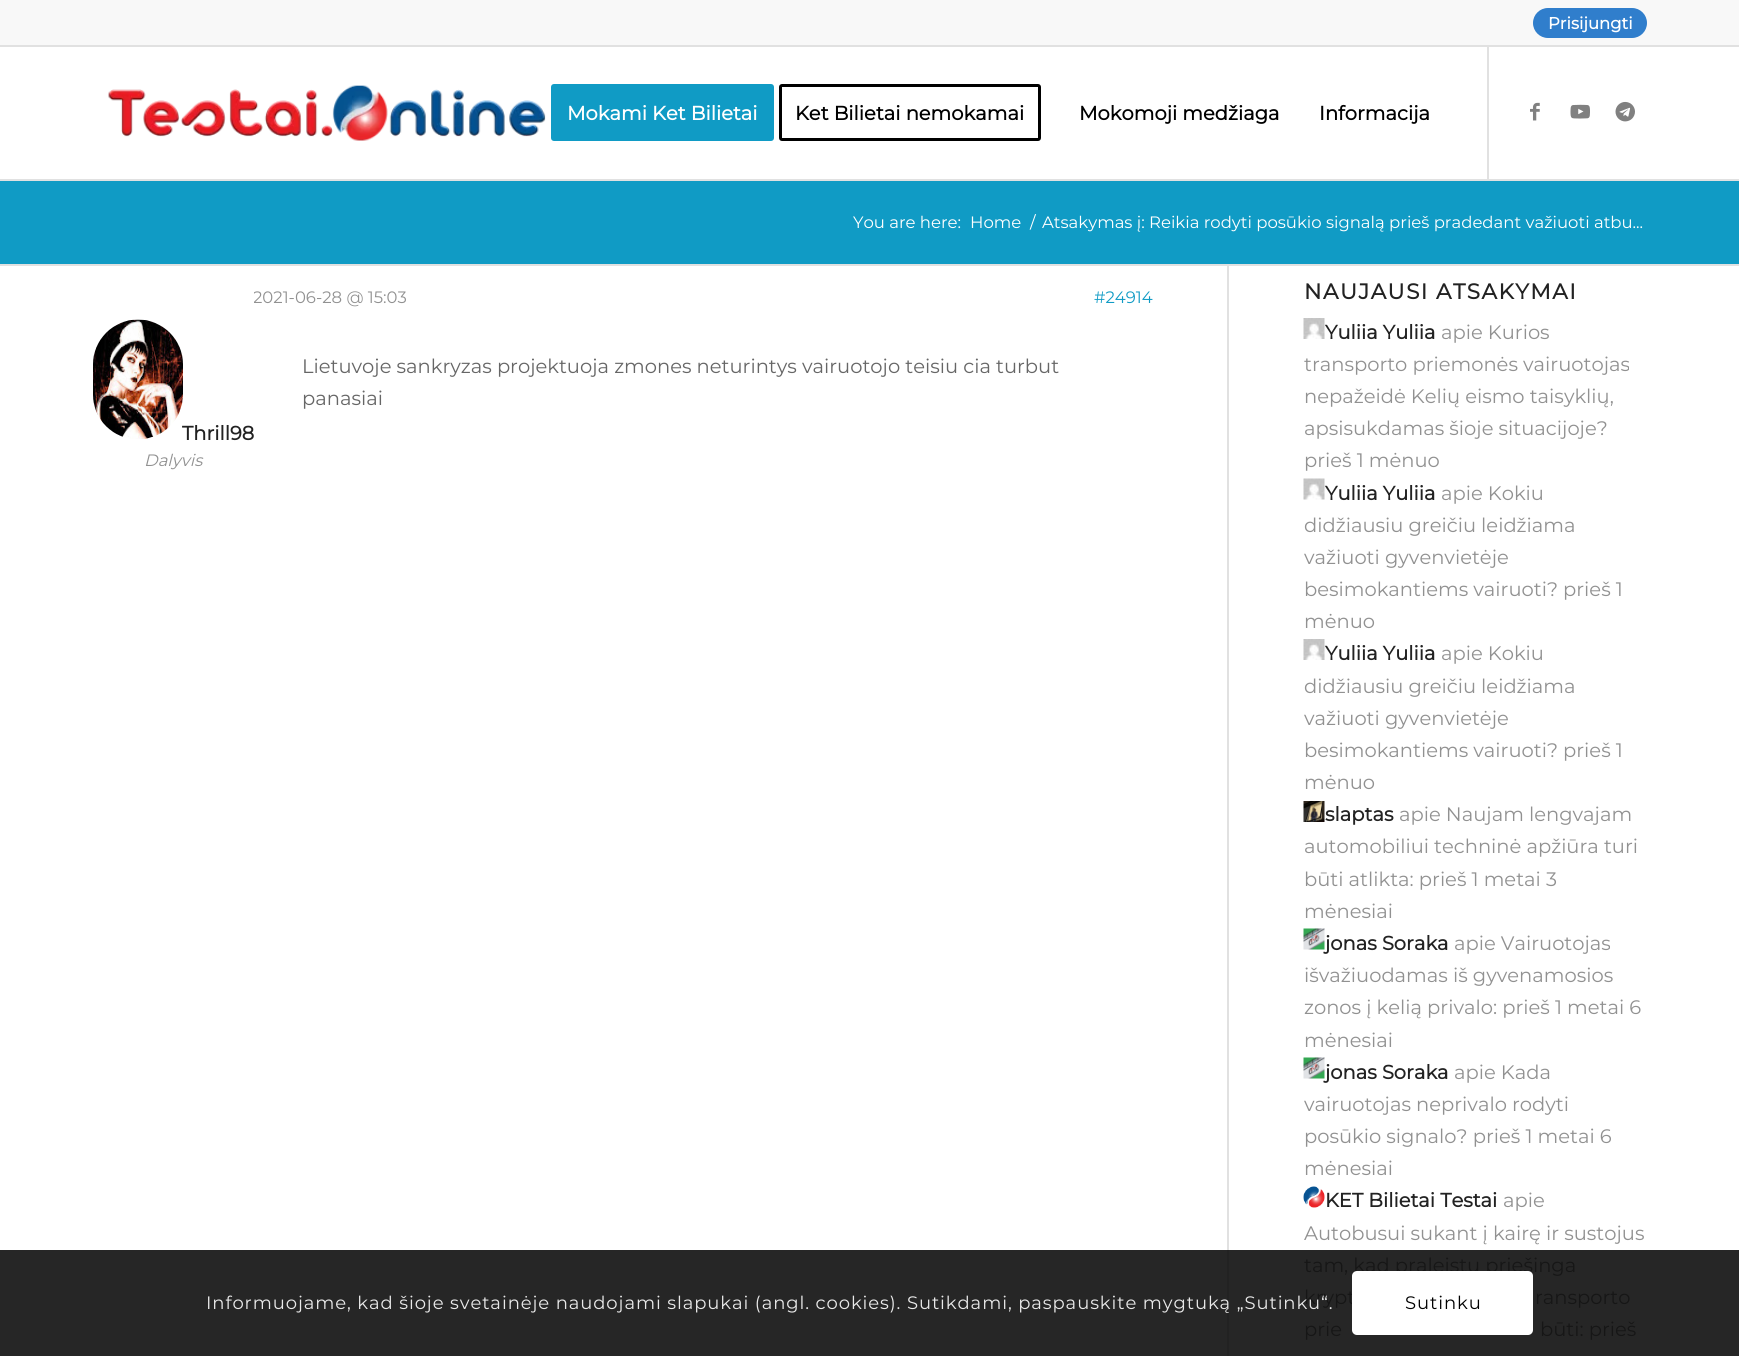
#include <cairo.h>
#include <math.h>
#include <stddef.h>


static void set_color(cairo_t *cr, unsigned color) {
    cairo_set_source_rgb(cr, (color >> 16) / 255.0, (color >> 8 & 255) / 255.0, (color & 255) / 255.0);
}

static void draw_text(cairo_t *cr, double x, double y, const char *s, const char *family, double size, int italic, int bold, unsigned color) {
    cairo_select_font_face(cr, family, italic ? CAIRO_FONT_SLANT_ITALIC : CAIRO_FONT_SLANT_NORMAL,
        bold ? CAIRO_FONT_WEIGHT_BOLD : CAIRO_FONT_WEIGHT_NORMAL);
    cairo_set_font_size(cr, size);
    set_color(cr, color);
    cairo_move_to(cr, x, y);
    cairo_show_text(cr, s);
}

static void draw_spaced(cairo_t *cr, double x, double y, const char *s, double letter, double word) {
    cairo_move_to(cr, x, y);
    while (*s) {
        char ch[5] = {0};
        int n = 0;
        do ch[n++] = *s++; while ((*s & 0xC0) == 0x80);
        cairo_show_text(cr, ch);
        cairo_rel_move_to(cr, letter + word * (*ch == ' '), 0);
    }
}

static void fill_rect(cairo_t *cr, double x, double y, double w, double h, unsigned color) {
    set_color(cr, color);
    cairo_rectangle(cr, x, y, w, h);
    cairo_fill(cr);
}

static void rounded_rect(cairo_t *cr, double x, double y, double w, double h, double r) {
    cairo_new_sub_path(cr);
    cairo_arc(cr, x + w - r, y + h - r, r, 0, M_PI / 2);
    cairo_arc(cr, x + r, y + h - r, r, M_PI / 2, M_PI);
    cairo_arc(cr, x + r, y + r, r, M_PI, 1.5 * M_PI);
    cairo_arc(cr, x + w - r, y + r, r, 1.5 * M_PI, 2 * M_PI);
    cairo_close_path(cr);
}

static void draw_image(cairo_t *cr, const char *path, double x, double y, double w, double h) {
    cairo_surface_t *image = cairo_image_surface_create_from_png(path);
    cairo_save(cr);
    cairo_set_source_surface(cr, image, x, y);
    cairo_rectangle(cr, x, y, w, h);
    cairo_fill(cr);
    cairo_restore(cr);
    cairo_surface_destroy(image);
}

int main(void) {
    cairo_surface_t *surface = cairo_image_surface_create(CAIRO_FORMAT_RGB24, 1739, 1356);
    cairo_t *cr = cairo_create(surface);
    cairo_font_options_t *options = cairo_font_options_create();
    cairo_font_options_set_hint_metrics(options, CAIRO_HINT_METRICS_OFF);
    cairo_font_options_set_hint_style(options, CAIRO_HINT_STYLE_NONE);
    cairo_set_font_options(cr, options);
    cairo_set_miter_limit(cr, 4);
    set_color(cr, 0xFFFFFF);
    cairo_paint(cr);
    fill_rect(cr, 0, 1250, 1739, 106, 0x262626);
    fill_rect(cr, 0, 0, 1739, 45, 0xF8F8F8);
    fill_rect(cr, 0, 45, 1739, 2, 0xE1E1E1);
    set_color(cr, 0x307ECC);
    rounded_rect(cr, 1533, 8, 114, 30, 15);
    cairo_fill(cr);
    draw_text(cr, 1548, 29, "Prisijungti", "Montserrat", 16.5, 0, 1, 0xFFFFFF);
    fill_rect(cr, 0, 179, 1739, 2, 0xE1E1E1);
    draw_image(cr, "assets/img1.png", 108, 85, 438, 56);
    fill_rect(cr, 1487, 47, 2, 132, 0xE1E1E1);
    set_color(cr, 0x109BC5);
    rounded_rect(cr, 552.5, 85.5, 220, 54, 1.5);
    cairo_fill_preserve(cr);
    cairo_set_line_width(cr, 3);
    cairo_stroke(cr);
    draw_text(cr, 567, 120, "Mokami Ket Bilietai", "Montserrat", 19.5, 0, 1, 0xFFFFFF);
    rounded_rect(cr, 780.5, 85.5, 259, 54, 1.5);
    set_color(cr, 0x000000);
    cairo_stroke(cr);
    draw_text(cr, 795, 120, "Ket Bilietai nemokamai", "Montserrat", 19.5, 0, 1, 0x000000);
    draw_text(cr, 1079, 120, "Mokomoji medžiaga", "Montserrat", 19.5, 0, 1, 0x000000);
    draw_text(cr, 1319, 120, "Informacija", "Montserrat", 19.5, 0, 1, 0x000000);
    draw_image(cr, "assets/img2.png", 1530, 102, 10, 19);
    draw_image(cr, "assets/img3.png", 1570, 104, 20, 15);
    draw_image(cr, "assets/img4.png", 1615, 101, 20, 21);
    fill_rect(cr, 0, 181, 1739, 83, 0x109BC5);
    draw_text(cr, 853, 228, "You are here:", "Montserrat Thin", 16.5, 0, 0, 0xFFFFFF);
    draw_text(cr, 970, 228, "Home", "Montserrat Thin", 16.5, 0, 0, 0xFFFFFF);
    draw_text(cr, 1030, 228, "/", "Montserrat Thin", 16.5, 0, 0, 0xFFFFFF);
    draw_text(cr, 1042, 228, "Atsakymas į: Reikia rodyti posūkio signalą prieš pradedant važiuoti atbu...", "Montserrat Thin", 16.5, 0, 0, 0xFFFFFF);
    fill_rect(cr, 0, 264, 1739, 2, 0xE1E1E1);
    cairo_save(cr);
    cairo_rectangle(cr, 254, 281, 898, 34);
    cairo_clip(cr);
    draw_text(cr, 253, 303, "2021-06-28 @ 15:03", "Montserrat Thin", 16.5, 0, 0, 0x919191);
    cairo_restore(cr);
    draw_text(cr, 1094, 303, "#24914", "Montserrat Thin", 16.5, 0, 0, 0x109BC5);
    draw_text(cr, 302, 373, "Lietuvoje sankryzas projektuoja zmones neturintys vairuotojo teisiu cia turbut", "Montserrat Thin", 19.5, 0, 0, 0x666666);
    draw_text(cr, 302, 405, "panasiai", "Montserrat Thin", 19.5, 0, 0, 0x666666);
    draw_image(cr, "assets/img5.png", 93, 319, 90, 120);
    draw_text(cr, 182, 440, "Thrill98", "Montserrat", 19.5, 0, 1, 0x222222);
    draw_text(cr, 144, 466, "Dalyvis", "Montserrat Thin", 16.5, 1, 0, 0x919191);
    fill_rect(cr, 1227, 266, 2, 984, 0xE1E1E1);
    fill_rect(cr, 1227, 1250, 2, 106, 0x222222);
    cairo_select_font_face(cr, "Montserrat", CAIRO_FONT_SLANT_NORMAL, CAIRO_FONT_WEIGHT_BOLD);
    cairo_set_font_size(cr, 21.5);
    draw_spaced(cr, 1304, 299, "NAUJAUSI ATSAKYMAI", 1.5, 0);
    draw_image(cr, "assets/img6.png", 1303, 318, 22, 21);
    draw_text(cr, 1325, 339, "Yuliia Yuliia", "Montserrat", 19.5, 0, 1, 0x222222);
    draw_text(cr, 1441, 339, "apie Kurios", "Montserrat Thin", 19.5, 0, 0, 0x919191);
    draw_text(cr, 1304, 371, "transporto priemonės vairuotojas", "Montserrat Thin", 19.5, 0, 0, 0x919191);
    draw_text(cr, 1304, 403, "nepažeidė Kelių eismo taisyklių,", "Montserrat Thin", 19.5, 0, 0, 0x919191);
    draw_text(cr, 1304, 435, "apsisukdamas šioje situacijoje?", "Montserrat Thin", 19.5, 0, 0, 0x919191);
    draw_text(cr, 1304, 467, "prieš 1 mėnuo", "Montserrat Thin", 19.5, 0, 0, 0x919191);
    draw_image(cr, "assets/img7.png", 1303, 478, 22, 22);
    draw_text(cr, 1325, 500, "Yuliia Yuliia", "Montserrat", 19.5, 0, 1, 0x222222);
    draw_text(cr, 1441, 500, "apie Kokiu", "Montserrat Thin", 19.5, 0, 0, 0x919191);
    draw_text(cr, 1304, 532, "didžiausiu greičiu leidžiama", "Montserrat Thin", 19.5, 0, 0, 0x919191);
    draw_text(cr, 1304, 564, "važiuoti gyvenvietėje", "Montserrat Thin", 19.5, 0, 0, 0x919191);
    draw_text(cr, 1304, 596, "besimokantiems vairuoti? prieš 1", "Montserrat Thin", 19.5, 0, 0, 0x919191);
    draw_text(cr, 1304, 628, "mėnuo", "Montserrat Thin", 19.5, 0, 0, 0x919191);
    draw_image(cr, "assets/img6.png", 1303, 639, 22, 21);
    draw_text(cr, 1325, 660, "Yuliia Yuliia", "Montserrat", 19.5, 0, 1, 0x222222);
    draw_text(cr, 1441, 660, "apie Kokiu", "Montserrat Thin", 19.5, 0, 0, 0x919191);
    draw_text(cr, 1304, 693, "didžiausiu greičiu leidžiama", "Montserrat Thin", 19.5, 0, 0, 0x919191);
    draw_text(cr, 1304, 725, "važiuoti gyvenvietėje", "Montserrat Thin", 19.5, 0, 0, 0x919191);
    draw_text(cr, 1304, 757, "besimokantiems vairuoti? prieš 1", "Montserrat Thin", 19.5, 0, 0, 0x919191);
    draw_text(cr, 1304, 789, "mėnuo", "Montserrat Thin", 19.5, 0, 0, 0x919191);
    draw_image(cr, "assets/img8.png", 1303, 801, 22, 21);
    draw_text(cr, 1325, 821, "slaptas", "Montserrat", 19.5, 0, 1, 0x222222);
    draw_text(cr, 1399, 821, "apie Naujam lengvajam", "Montserrat Thin", 19.5, 0, 0, 0x919191);
    draw_text(cr, 1304, 853, "automobiliui techninė apžiūra turi", "Montserrat Thin", 19.5, 0, 0, 0x919191);
    draw_text(cr, 1304, 886, "būti atlikta: prieš 1 metai 3", "Montserrat Thin", 19.5, 0, 0, 0x919191);
    draw_text(cr, 1304, 918, "mėnesiai", "Montserrat Thin", 19.5, 0, 0, 0x919191);
    draw_image(cr, "assets/img9.png", 1303, 928, 22, 22);
    draw_text(cr, 1325, 950, "jonas Soraka", "Montserrat", 19.5, 0, 1, 0x222222);
    draw_text(cr, 1454, 950, "apie Vairuotojas", "Montserrat Thin", 19.5, 0, 0, 0x919191);
    draw_text(cr, 1304, 982, "išvažiuodamas iš gyvenamosios", "Montserrat Thin", 19.5, 0, 0, 0x919191);
    draw_text(cr, 1304, 1014, "zonos į kelią privalo: prieš 1 metai 6", "Montserrat Thin", 19.5, 0, 0, 0x919191);
    draw_text(cr, 1304, 1047, "mėnesiai", "Montserrat Thin", 19.5, 0, 0, 0x919191);
    draw_image(cr, "assets/img9.png", 1303, 1057, 22, 22);
    draw_text(cr, 1325, 1079, "jonas Soraka", "Montserrat", 19.5, 0, 1, 0x222222);
    draw_text(cr, 1454, 1079, "apie Kada", "Montserrat Thin", 19.5, 0, 0, 0x919191);
    draw_text(cr, 1304, 1111, "vairuotojas neprivalo rodyti", "Montserrat Thin", 19.5, 0, 0, 0x919191);
    draw_text(cr, 1304, 1143, "posūkio signalo? prieš 1 metai 6", "Montserrat Thin", 19.5, 0, 0, 0x919191);
    draw_text(cr, 1304, 1175, "mėnesiai", "Montserrat Thin", 19.5, 0, 0, 0x919191);
    draw_image(cr, "assets/img10.png", 1303, 1186, 22, 22);
    draw_text(cr, 1325, 1207, "KET Bilietai Testai", "Montserrat", 19.5, 0, 1, 0x222222);
    draw_text(cr, 1503, 1207, "apie", "Montserrat Thin", 19.5, 0, 0, 0x919191);
    draw_text(cr, 1304, 1240, "Autobusui sukant į kairę ir sustojus", "Montserrat Thin", 19.5, 0, 0, 0x919191);
    draw_text(cr, 1304, 1272, "tam, kad praleistų priešinga", "Montserrat Thin", 19.5, 0, 0, 0x161616);
    draw_text(cr, 1304, 1304, "krypt", "Montserrat Thin", 19.5, 0, 0, 0x161616);
    draw_text(cr, 1535, 1304, "ransporto", "Montserrat Thin", 19.5, 0, 0, 0x161616);
    draw_text(cr, 1304, 1336, "prie", "Montserrat Thin", 19.5, 0, 0, 0x161616);
    draw_text(cr, 1540, 1336, "būti: prieš", "Montserrat Thin", 19.5, 0, 0, 0x161616);
    cairo_set_font_size(cr, 18);
    set_color(cr, 0xE9E9E9);
    draw_spaced(cr, 206, 1309, "Informuojame, kad šioje svetainėje naudojami slapukai (angl. cookies). Sutikdami, paspauskite mygtuką „Sutinku“.", 0.9, 0);
    set_color(cr, 0xFFFFFF);
    rounded_rect(cr, 1352, 1271, 181, 64, 5);
    cairo_fill(cr);
    set_color(cr, 0x000000);
    draw_spaced(cr, 1405, 1309, "Sutinku", 0.9, 0);
    cairo_surface_write_to_png(surface, "output.png");
    cairo_font_options_destroy(options);
    cairo_destroy(cr);
    cairo_surface_destroy(surface);
    return 0;
}
